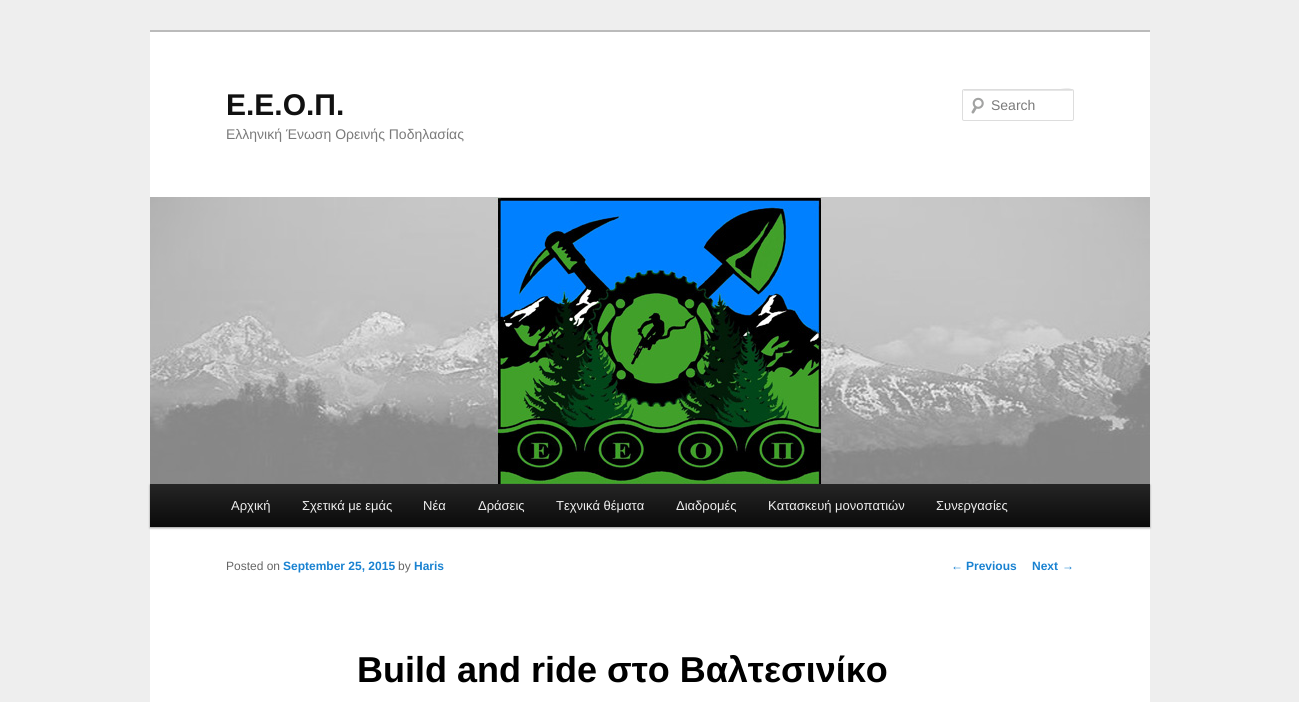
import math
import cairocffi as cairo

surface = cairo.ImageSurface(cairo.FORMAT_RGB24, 1299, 702)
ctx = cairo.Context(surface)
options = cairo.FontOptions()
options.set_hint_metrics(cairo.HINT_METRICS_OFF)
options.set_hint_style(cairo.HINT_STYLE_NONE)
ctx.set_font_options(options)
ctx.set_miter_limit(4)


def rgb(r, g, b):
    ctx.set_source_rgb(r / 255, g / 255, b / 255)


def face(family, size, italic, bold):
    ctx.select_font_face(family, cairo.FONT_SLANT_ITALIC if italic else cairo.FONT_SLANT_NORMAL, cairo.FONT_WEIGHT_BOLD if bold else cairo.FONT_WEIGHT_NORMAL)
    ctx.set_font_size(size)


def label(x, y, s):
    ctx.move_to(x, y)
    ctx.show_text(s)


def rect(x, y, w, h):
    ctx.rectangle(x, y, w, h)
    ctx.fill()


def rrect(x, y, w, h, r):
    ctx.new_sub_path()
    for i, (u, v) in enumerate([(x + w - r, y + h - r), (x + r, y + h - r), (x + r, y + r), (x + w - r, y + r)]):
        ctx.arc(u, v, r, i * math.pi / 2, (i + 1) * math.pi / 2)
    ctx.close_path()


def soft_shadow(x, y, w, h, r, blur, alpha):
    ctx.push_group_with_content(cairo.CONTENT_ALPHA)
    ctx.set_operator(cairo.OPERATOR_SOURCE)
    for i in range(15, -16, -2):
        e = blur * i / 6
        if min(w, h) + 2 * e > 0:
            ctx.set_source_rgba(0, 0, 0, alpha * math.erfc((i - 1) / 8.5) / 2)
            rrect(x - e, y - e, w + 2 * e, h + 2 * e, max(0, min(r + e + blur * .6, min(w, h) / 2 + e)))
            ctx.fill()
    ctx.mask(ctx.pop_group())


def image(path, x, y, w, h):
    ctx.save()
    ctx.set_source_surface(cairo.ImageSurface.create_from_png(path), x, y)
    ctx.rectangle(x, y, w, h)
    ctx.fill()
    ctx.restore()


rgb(238, 238, 238)
ctx.paint()
rgb(255, 255, 255)
rect(150, 32, 1000, 670)
rgb(187, 187, 187)
rect(150, 30, 1000, 2)
face('Liberation Sans', 30, 0, 1)
rgb(17, 17, 17)
label(226, 115, 'Ε.Ε.Ο.Π.')
face('Liberation Sans', 14, 0, 0)
rgb(122, 122, 122)
label(226, 139, 'Ελληνική Ένωση Ορεινής Ποδηλασίας')
image('image0.png', 971, 97, 13, 17)
rgb(230, 230, 230)
ctx.new_path()
ctx.move_to(964, 91)
ctx.line_to(1073, 91)
ctx.line_to(1073, 92)
ctx.curve_to(1073, 85, 1058, 90, 1054, 90)
ctx.line_to(964, 90)
ctx.line_to(963, 92)
ctx.curve_to(963, 91, 963, 91, 964, 91)
ctx.close_path()
ctx.fill()
rrect(962.5, 89.5, 111, 31, 1.5)
rgb(221, 221, 221)
ctx.set_line_width(1)
ctx.stroke()
rgb(122, 122, 122)
label(991, 110, 'Search')
rgb(0, 0, 0)
soft_shadow(150, 485, 1000, 43, 0, 1, 0.4)
image('image1.png', 150, 197, 1000, 287)
gradient = cairo.LinearGradient(650, 484, 650, 527)
gradient.add_color_stop_rgba(0, 0.145, 0.145, 0.145, 1)
gradient.add_color_stop_rgba(1, 0.039, 0.039, 0.039, 1)
ctx.set_source(gradient)
rect(150, 484, 1000, 43)
face('Liberation Sans', 13, 0, 0)
rgb(238, 238, 238)
label(231, 510, 'Αρχική')
label(302, 510, 'Σχετικά με εμάς')
label(423, 510, 'Νέα')
label(478, 510, 'Δράσεις')
label(556, 510, 'Τεχνικά θέματα')
label(676, 510, 'Διαδρομές')
label(768, 510, 'Κατασκευή μονοπατιών')
label(936, 510, 'Συνεργασίες')
face('Liberation Sans', 12, 0, 0)
rgb(102, 102, 102)
label(226, 570, 'Posted on')
face('Liberation Sans', 12, 0, 1)
rgb(25, 130, 209)
label(283, 570, 'September 25, 2015')
face('Liberation Sans', 12, 0, 0)
rgb(102, 102, 102)
label(398, 570, 'by')
face('Liberation Sans', 12, 0, 1)
rgb(25, 130, 209)
label(414, 570, 'Haris')
face('Liberation Sans', 36, 0, 1)
rgb(0, 0, 0)
label(357, 682, 'Βuild and ride στο Βαλτεσινίκο')
face('Liberation Sans', 12, 0, 0)
rgb(25, 130, 209)
label(951, 570, '←')
face('Liberation Sans', 12, 0, 1)
label(966, 570, 'Previous')
label(1032, 570, 'Next')
face('Liberation Sans', 12, 0, 0)
label(1062, 570, '→')
surface.write_to_png('render.png')
